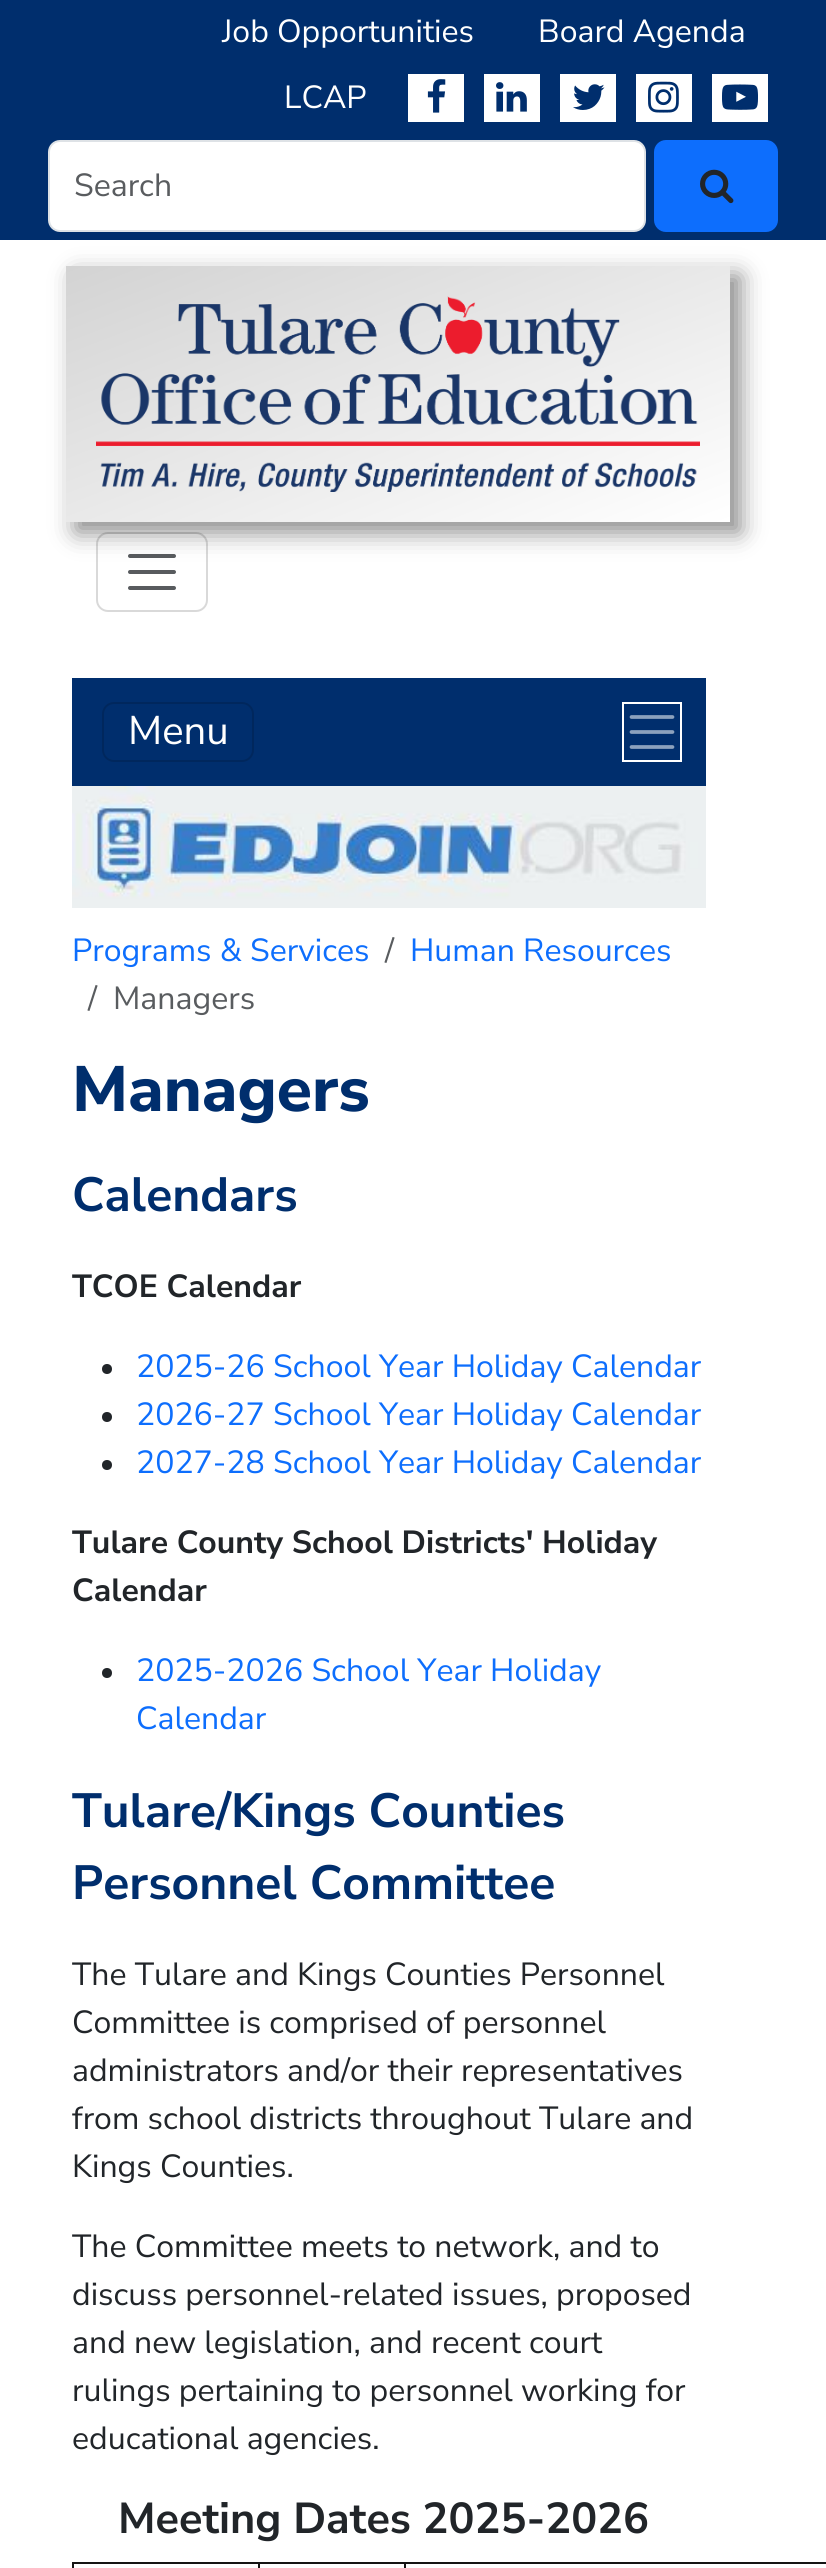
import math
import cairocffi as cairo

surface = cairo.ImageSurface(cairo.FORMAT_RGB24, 826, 2568)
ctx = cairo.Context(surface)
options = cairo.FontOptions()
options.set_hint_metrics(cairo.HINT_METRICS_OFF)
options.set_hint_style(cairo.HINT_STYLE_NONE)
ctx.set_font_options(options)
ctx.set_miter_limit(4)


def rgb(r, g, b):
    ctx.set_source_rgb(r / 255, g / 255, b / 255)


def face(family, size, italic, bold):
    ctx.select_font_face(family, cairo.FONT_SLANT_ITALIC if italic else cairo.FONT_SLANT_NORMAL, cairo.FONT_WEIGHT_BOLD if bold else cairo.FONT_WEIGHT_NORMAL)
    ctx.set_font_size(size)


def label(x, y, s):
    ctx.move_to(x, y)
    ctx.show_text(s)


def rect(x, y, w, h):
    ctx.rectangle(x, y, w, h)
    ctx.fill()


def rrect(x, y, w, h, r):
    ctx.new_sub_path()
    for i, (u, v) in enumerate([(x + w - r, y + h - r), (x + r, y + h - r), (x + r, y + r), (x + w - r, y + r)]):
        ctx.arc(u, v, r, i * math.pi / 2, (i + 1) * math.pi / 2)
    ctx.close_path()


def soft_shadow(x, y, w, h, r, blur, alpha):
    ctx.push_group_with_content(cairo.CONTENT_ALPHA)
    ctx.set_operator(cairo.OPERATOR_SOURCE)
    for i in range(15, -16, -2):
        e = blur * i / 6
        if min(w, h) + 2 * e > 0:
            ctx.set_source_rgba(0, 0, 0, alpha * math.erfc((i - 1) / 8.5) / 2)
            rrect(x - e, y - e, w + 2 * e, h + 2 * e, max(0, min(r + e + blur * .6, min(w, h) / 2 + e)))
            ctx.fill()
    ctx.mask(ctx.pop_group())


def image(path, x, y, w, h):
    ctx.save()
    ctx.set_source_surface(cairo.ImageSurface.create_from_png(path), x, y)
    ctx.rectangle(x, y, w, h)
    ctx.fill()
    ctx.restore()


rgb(255, 255, 255)
ctx.paint()
rgb(0, 46, 109)
rect(0, 0, 826, 240)
face('Nunito Sans', 32, 0, 0)
rgb(255, 255, 255)
label(222, 42, 'Job Opportunities')
label(538, 42, 'Board Agenda')
label(284, 108, 'LCAP')
rect(408, 74, 56, 48)
image('image0.png', 427, 79, 19, 34)
rect(484, 74, 56, 48)
image('image1.png', 496, 82, 31, 30)
rect(560, 74, 56, 48)
image('image2.png', 573, 84, 32, 26)
rect(636, 74, 56, 48)
image('image3.png', 648, 81, 31, 32)
rect(712, 74, 56, 48)
image('image4.png', 722, 84, 36, 26)
rrect(49, 141, 596, 90, 11)
ctx.fill_preserve()
rgb(222, 226, 230)
ctx.stroke()
rgb(89, 92, 95)
label(74, 196, 'Search')
rgb(13, 110, 253)
rrect(654, 140, 124, 92, 12)
ctx.fill()
image('image5.png', 700, 169, 34, 35)
rgb(136, 136, 136)
soft_shadow(76, 276, 664, 256, 0, 12, 1)
gradient = cairo.LinearGradient(312, 171, 484, 617)
gradient.add_color_stop_rgba(0, 0.827, 0.827, 0.827, 1)
gradient.add_color_stop_rgba(1, 1, 1, 1, 1)
ctx.set_source(gradient)
rect(66, 266, 664, 256)
image('image6.png', 96, 296, 604, 196)
rrect(97, 533, 110, 78, 11)
ctx.set_source_rgba(0, 0, 0, 0.15)
ctx.stroke()
ctx.new_path()
ctx.move_to(130, 556)
ctx.line_to(174, 556)
ctx.move_to(130, 572)
ctx.line_to(174, 572)
ctx.move_to(130, 588)
ctx.line_to(174, 588)
ctx.set_source_rgba(0.129, 0.145, 0.161, 0.75)
ctx.set_line_width(4)
ctx.set_line_cap(cairo.LINE_CAP_ROUND)
ctx.stroke()
rgb(0, 46, 109)
rect(72, 678, 634, 108)
rrect(103, 703, 150, 58, 11)
rgb(0, 39, 93)
ctx.set_line_width(2)
ctx.set_line_cap(cairo.LINE_CAP_BUTT)
ctx.stroke()
face('Nunito Sans', 40, 0, 0)
rgb(255, 255, 255)
label(128, 744, 'Menu')
ctx.new_path()
ctx.move_to(631.5, 717)
ctx.line_to(672.5, 717)
ctx.move_to(631.5, 732)
ctx.line_to(672.5, 732)
ctx.move_to(631.5, 747)
ctx.line_to(672.5, 747)
rgb(140, 161, 189)
ctx.set_line_width(3.7)
ctx.set_line_cap(cairo.LINE_CAP_ROUND)
ctx.stroke()
ctx.rectangle(623, 703, 58, 58)
rgb(255, 255, 255)
ctx.set_line_width(2)
ctx.set_line_cap(cairo.LINE_CAP_BUTT)
ctx.stroke()
image('image7.png', 72, 786, 634, 122)
face('Nunito Sans', 32, 0, 0)
rgb(13, 110, 253)
label(72, 961, 'Programs & Services')
rgb(89, 92, 95)
label(385, 961, '/')
rgb(13, 110, 253)
label(410, 961, 'Human Resources')
rgb(89, 92, 95)
label(88, 1009, '/')
label(113, 1009, 'Managers')
face('Nunito Sans ExtraBold', 64, 0, 0)
rgb(0, 46, 109)
label(72, 1111, 'Managers')
face('Nunito Sans', 48, 0, 1)
label(72, 1211, 'Calendars')
face('Nunito Sans', 32, 0, 1)
rgb(33, 37, 41)
label(72, 1297, 'TCOE Calendar')
ctx.new_path()
ctx.arc(107, 1369, 5, 0, 2 * math.pi)
ctx.fill()
face('Nunito Sans', 32, 0, 0)
rgb(13, 110, 253)
label(136, 1377, '2025-26 School Year Holiday Calendar')
rgb(33, 37, 41)
ctx.new_path()
ctx.arc(107, 1417, 5, 0, 2 * math.pi)
ctx.fill()
rgb(13, 110, 253)
label(136, 1425, '2026-27 School Year Holiday Calendar')
rgb(33, 37, 41)
ctx.new_path()
ctx.arc(107, 1465, 5, 0, 2 * math.pi)
ctx.fill()
rgb(13, 110, 253)
label(136, 1473, '2027-28 School Year Holiday Calendar')
face('Nunito Sans', 32, 0, 1)
rgb(33, 37, 41)
label(72, 1553, 'Tulare County School Districts\' Holiday')
label(72, 1601, 'Calendar')
ctx.new_path()
ctx.arc(107, 1673, 5, 0, 2 * math.pi)
ctx.fill()
face('Nunito Sans', 32, 0, 0)
rgb(13, 110, 253)
label(136, 1681, '2025-2026 School Year Holiday')
label(136, 1729, 'Calendar')
face('Nunito Sans', 48, 0, 1)
rgb(0, 46, 109)
label(72, 1827, 'Tulare/Kings Counties')
label(72, 1899, 'Personnel Committee')
face('Nunito Sans', 32, 0, 0)
rgb(33, 37, 41)
label(72, 1985, 'The Tulare and Kings Counties Personnel')
label(72, 2033, 'Committee is comprised of personnel')
label(72, 2081, 'administrators and/or their representatives')
label(72, 2129, 'from school districts throughout Tulare and')
label(72, 2177, 'Kings Counties.')
label(72, 2257, 'The Committee meets to network, and to')
label(72, 2305, 'discuss personnel-related issues, proposed')
label(72, 2353, 'and new legislation, and recent court')
label(72, 2401, 'rulings pertaining to personnel working for')
label(72, 2449, 'educational agencies.')
face('Nunito Sans', 43.25, 0, 1)
label(118, 2533, 'Meeting Dates 2025-2026')
rgb(21, 20, 20)
rect(404, 2562, 422, 2)
rect(404, 2562, 2, 6)
rect(258, 2562, 148, 2)
rect(258, 2562, 2, 6)
rect(72, 2562, 188, 2)
rect(72, 2562, 2, 6)
surface.write_to_png('render.png')
